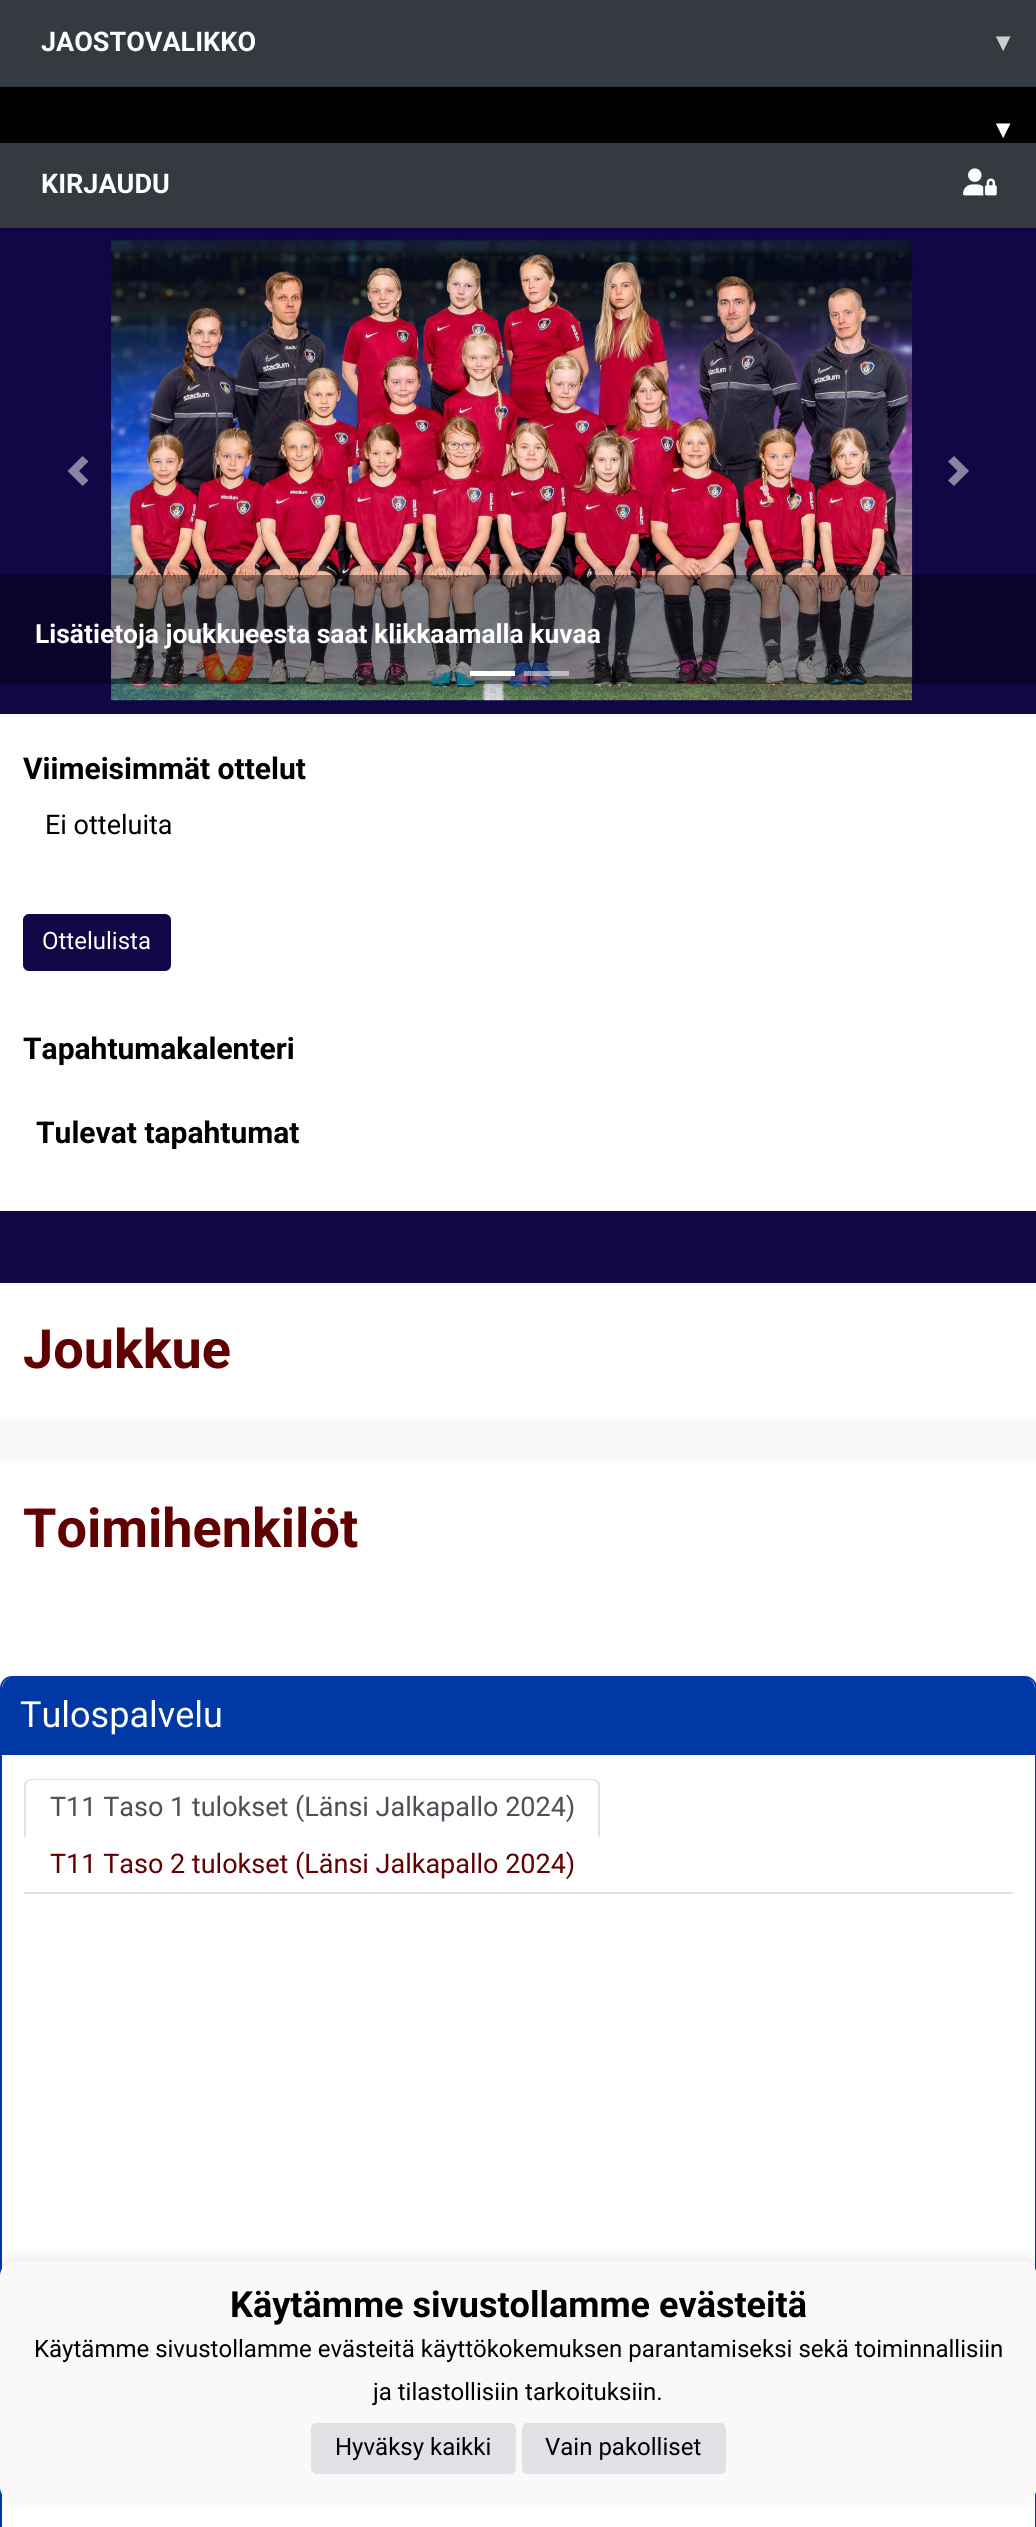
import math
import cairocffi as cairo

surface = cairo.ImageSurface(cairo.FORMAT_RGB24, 1036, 2527)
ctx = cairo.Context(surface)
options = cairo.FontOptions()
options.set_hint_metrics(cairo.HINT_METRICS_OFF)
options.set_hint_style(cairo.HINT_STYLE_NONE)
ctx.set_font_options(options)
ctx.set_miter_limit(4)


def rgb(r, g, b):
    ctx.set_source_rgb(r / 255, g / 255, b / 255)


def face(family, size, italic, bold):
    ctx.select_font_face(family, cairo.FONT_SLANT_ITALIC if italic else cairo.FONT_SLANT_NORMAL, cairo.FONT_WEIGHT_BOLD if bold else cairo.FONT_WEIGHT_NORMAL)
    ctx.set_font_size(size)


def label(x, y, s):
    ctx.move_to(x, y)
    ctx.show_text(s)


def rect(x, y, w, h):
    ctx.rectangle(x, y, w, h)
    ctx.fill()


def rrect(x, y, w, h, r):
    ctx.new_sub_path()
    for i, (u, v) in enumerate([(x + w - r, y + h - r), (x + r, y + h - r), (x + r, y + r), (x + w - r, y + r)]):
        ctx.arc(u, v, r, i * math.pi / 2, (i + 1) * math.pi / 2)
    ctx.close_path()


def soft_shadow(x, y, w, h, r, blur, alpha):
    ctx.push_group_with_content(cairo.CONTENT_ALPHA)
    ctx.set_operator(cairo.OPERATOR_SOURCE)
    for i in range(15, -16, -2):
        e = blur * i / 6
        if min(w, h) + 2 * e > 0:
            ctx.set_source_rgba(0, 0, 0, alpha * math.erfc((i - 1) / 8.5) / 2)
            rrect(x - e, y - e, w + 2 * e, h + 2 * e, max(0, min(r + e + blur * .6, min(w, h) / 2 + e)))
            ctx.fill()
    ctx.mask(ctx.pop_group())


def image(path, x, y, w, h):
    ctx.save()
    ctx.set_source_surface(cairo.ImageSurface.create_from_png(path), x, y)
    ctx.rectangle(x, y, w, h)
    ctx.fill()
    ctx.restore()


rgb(255, 255, 255)
ctx.paint()
rgb(52, 58, 64)
rect(0, 0, 1036, 86)
rgb(49, 55, 61)
rect(0, 86, 1036, 1)
face('Roboto', 27, 0, 1)
rgb(255, 255, 255)
label(41, 51, 'JAOSTOVALIKKO')
face('DejaVu Sans', 27, 0, 1)
rgb(204, 206, 207)
label(996, 51, '▾')
rgb(0, 0, 0)
rect(0, 87, 1036, 56)
rgb(255, 255, 255)
label(996, 138, '▾')
rgb(52, 58, 64)
rect(0, 143, 1036, 85)
image('image1.png', 0, 228, 1036, 486)
ctx.set_source_rgba(0, 0, 0, 0.05)
rect(0, 227, 1036, 2)
face('Roboto', 27, 0, 1)
rgb(255, 255, 255)
label(41, 193, 'KIRJAUDU')
image('image0.png', 963, 168, 34, 28)
rgb(136, 131, 163)
ctx.new_path()
ctx.move_to(82.5, 456)
ctx.line_to(67.5, 471)
ctx.line_to(82.5, 486)
ctx.line_to(88.5, 480.5)
ctx.line_to(79, 471)
ctx.line_to(88.5, 461.5)
ctx.close_path()
ctx.fill()
ctx.new_path()
ctx.move_to(954, 456)
ctx.line_to(948, 461.5)
ctx.line_to(957.5, 471)
ctx.line_to(948, 480.5)
ctx.line_to(954, 486)
ctx.line_to(969, 471)
ctx.close_path()
ctx.fill()
ctx.set_source_rgba(0, 0, 0, 0.4)
rect(0, 575, 1036, 109)
face('Roboto', 26.4, 0, 1)
rgb(255, 255, 255)
label(35, 643, 'Lisätietoja joukkueesta saat klikkaamalla kuvaa')
rect(470, 671, 45, 5)
ctx.set_source_rgba(1, 1, 1, 0.5)
rect(524, 671, 45, 5)
face('Roboto', 30, 0, 1)
rgb(0, 0, 0)
label(23, 779, 'Viimeisimmät ottelut')
face('Roboto', 27, 0, 0)
label(45, 834, 'Ei otteluita')
rgb(17, 7, 70)
rrect(23, 914, 148, 57, 6)
ctx.fill()
face('Roboto', 24, 0, 0)
rgb(255, 255, 255)
label(42, 949, 'Ottelulista')
face('Roboto', 30, 0, 1)
rgb(0, 0, 0)
label(23, 1059, 'Tapahtumakalenteri')
label(36, 1143, 'Tulevat tapahtumat')
rgb(17, 7, 70)
rect(0, 1211, 1036, 72)
face('Roboto', 54, 0, 1)
rgb(97, 0, 0)
label(23, 1368, 'Joukkue')
rgb(248, 249, 250)
rect(0, 1419, 1036, 42)
rgb(97, 0, 0)
label(23, 1547, 'Toimihenkilöt')
ctx.new_path()
ctx.move_to(12, 1677)
ctx.line_to(1025, 1677)
ctx.curve_to(1031, 1677, 1036, 1682, 1036, 1688)
ctx.line_to(1036, 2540)
ctx.line_to(1, 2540)
ctx.line_to(1, 1688)
ctx.curve_to(1, 1682, 6, 1677, 12, 1677)
ctx.close_path()
rgb(0, 57, 166)
ctx.stroke()
ctx.new_path()
ctx.move_to(14, 1677)
ctx.line_to(1023, 1677)
ctx.curve_to(1029.5, 1677, 1035, 1682.5, 1035, 1689)
ctx.line_to(1035, 1755)
ctx.line_to(2, 1755)
ctx.line_to(2, 1689)
ctx.curve_to(2, 1682.5, 7.5, 1677, 14, 1677)
ctx.close_path()
ctx.fill()
face('Roboto', 36, 0, 0)
rgb(255, 255, 255)
label(20, 1727, 'Tulospalvelu')
rgb(222, 226, 230)
rect(24, 1892, 989, 2)
ctx.new_path()
ctx.move_to(30, 1779)
ctx.curve_to(28, 1779, 27, 1780, 26, 1781)
ctx.line_to(27, 1782)
ctx.curve_to(28, 1781, 29, 1780, 30, 1780)
ctx.line_to(594, 1780)
ctx.line_to(597, 1782)
ctx.line_to(598, 1781)
ctx.curve_to(597, 1780, 596, 1779, 594, 1779)
ctx.close_path()
ctx.fill()
ctx.new_path()
ctx.move_to(600, 1838)
ctx.line_to(600, 1785)
ctx.curve_to(600, 1784, 599, 1782, 598, 1781)
ctx.line_to(597, 1782)
ctx.line_to(598, 1785)
ctx.line_to(598, 1836)
ctx.close_path()
ctx.fill()
rgb(255, 255, 255)
ctx.new_path()
ctx.move_to(600, 1838)
ctx.line_to(24, 1838)
ctx.line_to(26, 1836)
ctx.line_to(598, 1836)
ctx.close_path()
ctx.fill()
rgb(222, 226, 230)
ctx.new_path()
ctx.move_to(24, 1838)
ctx.line_to(26, 1836)
ctx.line_to(26, 1785)
ctx.line_to(27, 1782)
ctx.line_to(26, 1781)
ctx.curve_to(25, 1782, 24, 1784, 24, 1785)
ctx.close_path()
ctx.fill()
face('Roboto', 27, 0, 0)
rgb(73, 80, 87)
label(50, 1816, 'T11 Taso 1 tulokset (Länsi Jalkapallo 2024)')
rgb(97, 0, 0)
label(50, 1873, 'T11 Taso 2 tulokset (Länsi Jalkapallo 2024)')
rgb(0, 0, 0)
soft_shadow(0, 2258, 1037, 241, 15, 7.5, 0.1)
rgb(250, 248, 248)
rrect(0, 2261, 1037, 241, 15)
ctx.fill()
face('Roboto', 36, 0, 1)
rgb(0, 0, 0)
label(230, 2317, 'Käytämme sivustollamme evästeitä')
face('Roboto', 24, 0, 0)
label(34, 2357, 'Käytämme sivustollamme evästeitä käyttökokemuksen parantamiseksi sekä toiminnallisiin')
label(373, 2400, 'ja tilastollisiin tarkoituksiin.')
rgb(223, 225, 229)
rrect(311, 2423, 205, 51, 6)
ctx.fill()
rgb(0, 0, 0)
label(335, 2455, 'Hyväksy kaikki')
rgb(223, 225, 229)
rrect(522, 2423, 204, 51, 6)
ctx.fill()
rgb(0, 0, 0)
label(545, 2455, 'Vain pakolliset')
surface.write_to_png('render.png')
